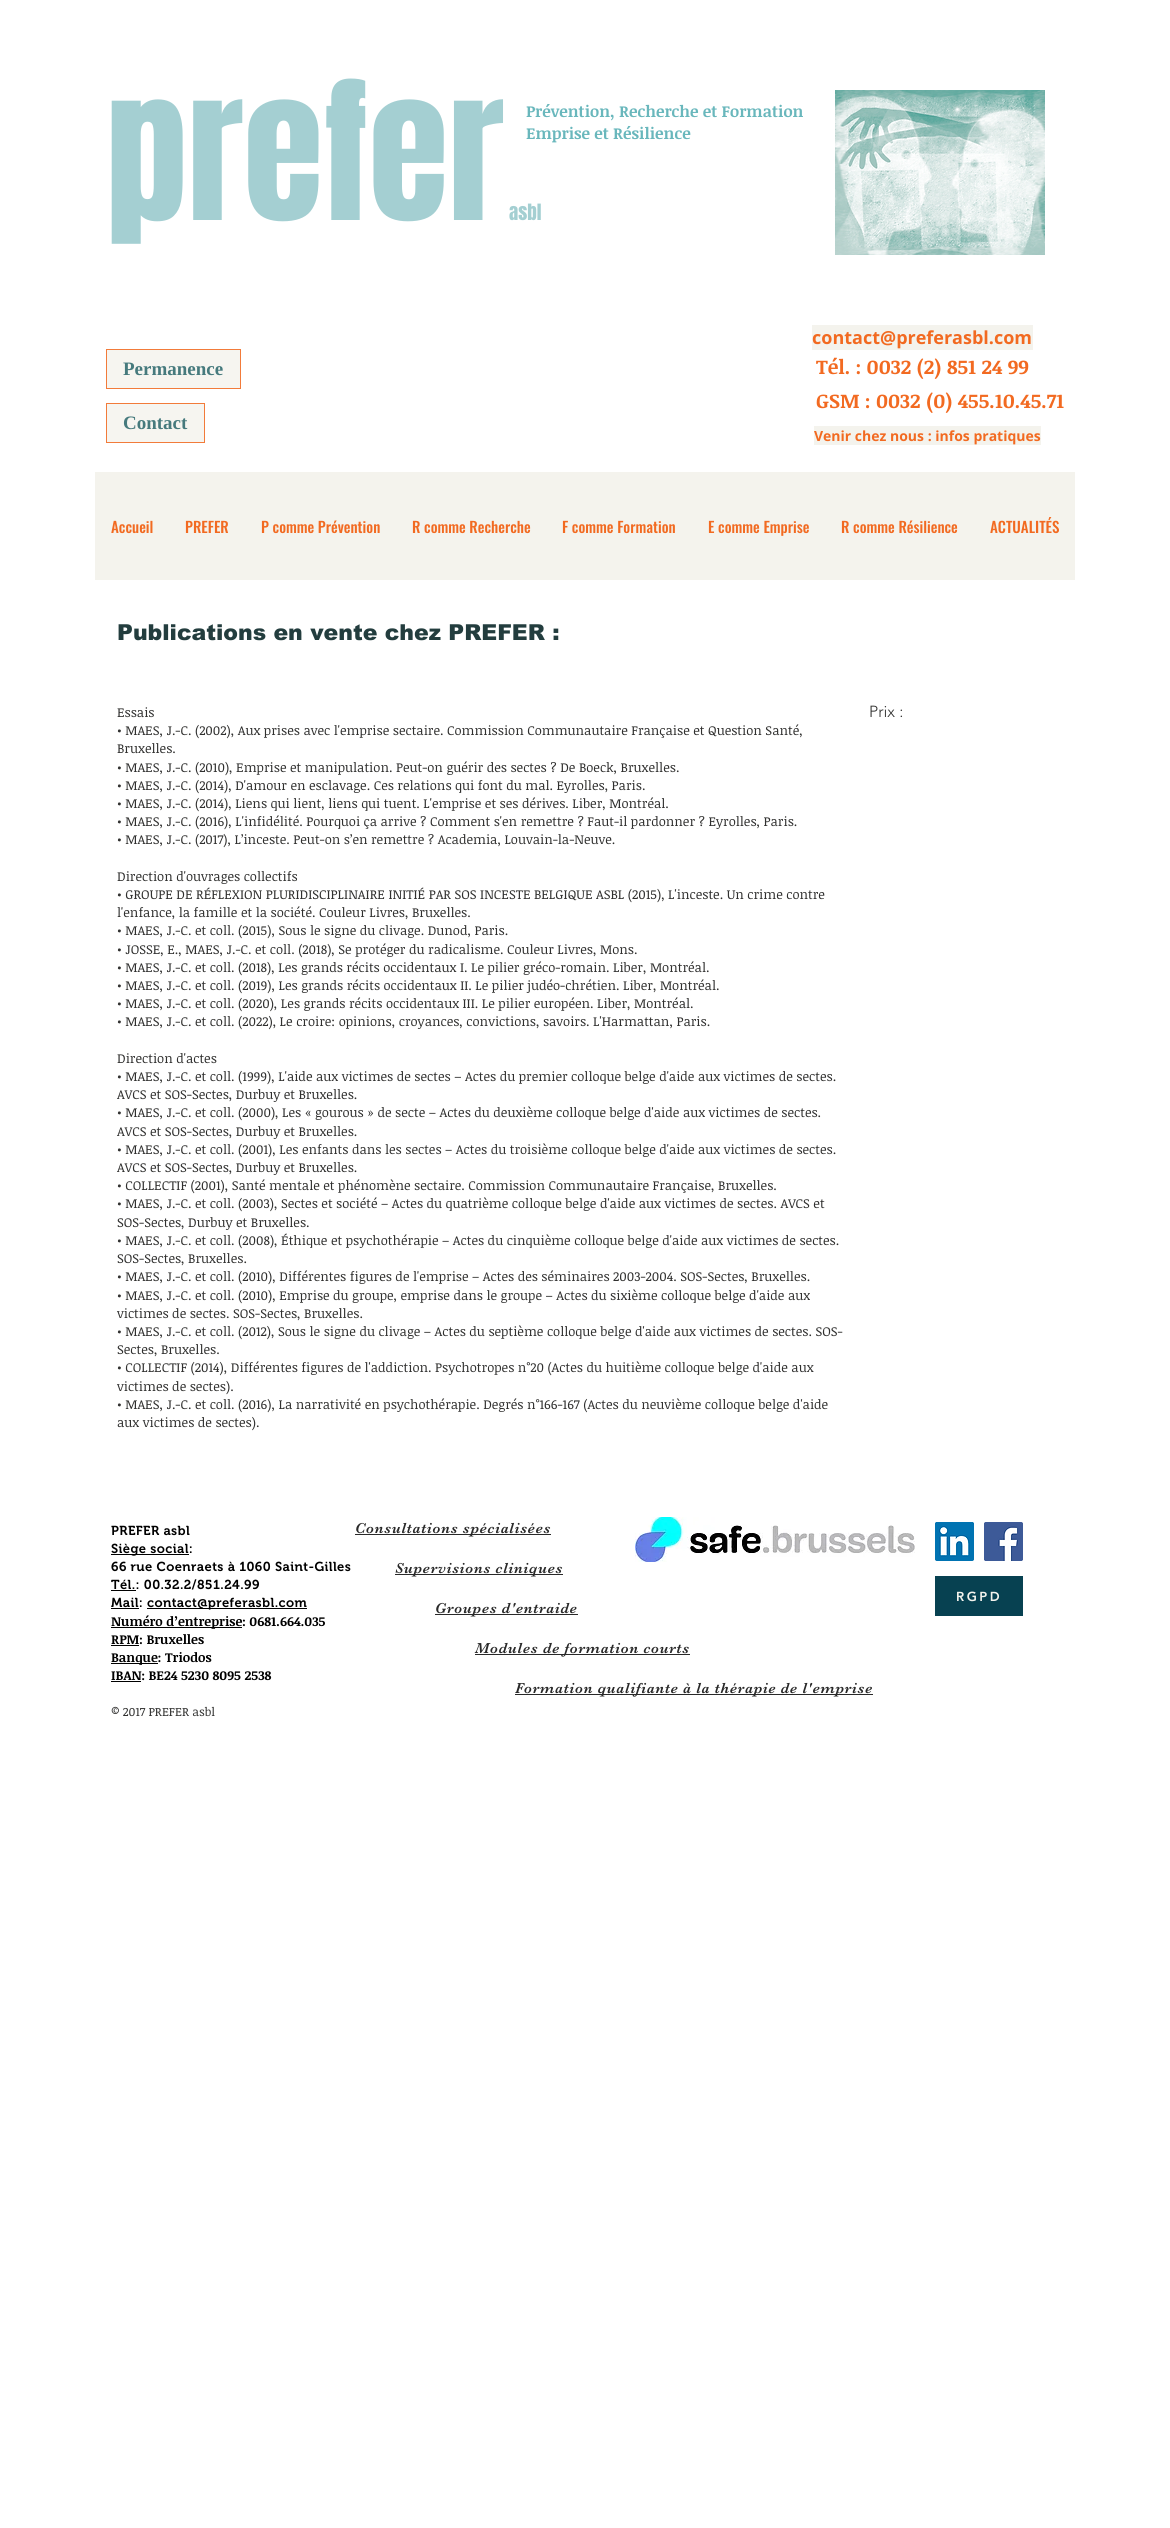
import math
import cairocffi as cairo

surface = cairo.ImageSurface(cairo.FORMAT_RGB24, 1170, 2528)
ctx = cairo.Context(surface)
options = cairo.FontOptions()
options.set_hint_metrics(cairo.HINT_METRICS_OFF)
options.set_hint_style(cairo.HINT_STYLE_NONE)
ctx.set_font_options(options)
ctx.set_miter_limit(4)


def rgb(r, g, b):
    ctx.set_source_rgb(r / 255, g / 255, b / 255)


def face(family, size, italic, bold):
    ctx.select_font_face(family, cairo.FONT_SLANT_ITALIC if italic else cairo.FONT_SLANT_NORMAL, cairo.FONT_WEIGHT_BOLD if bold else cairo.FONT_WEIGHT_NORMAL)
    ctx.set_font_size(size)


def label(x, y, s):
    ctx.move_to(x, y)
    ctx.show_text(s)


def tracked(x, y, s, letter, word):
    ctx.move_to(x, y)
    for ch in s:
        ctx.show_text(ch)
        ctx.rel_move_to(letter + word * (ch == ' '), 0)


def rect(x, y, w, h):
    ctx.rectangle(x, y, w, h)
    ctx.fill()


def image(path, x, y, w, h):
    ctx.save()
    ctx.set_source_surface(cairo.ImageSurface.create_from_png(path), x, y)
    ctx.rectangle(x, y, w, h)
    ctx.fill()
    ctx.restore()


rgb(255, 255, 255)
ctx.paint()
face('Anton', 163, 0, 0)
rgb(164, 207, 210)
label(106, 220, 'prefer')
face('Anton', 19, 0, 0)
label(509, 220, 'asbl')
face('Noticia Text', 16, 0, 1)
rgb(105, 183, 188)
label(526, 117, 'Prévention, Recherche et Formation')
label(526, 139, 'Emprise et Résilience')
image('image0.png', 835, 90, 210, 165)
rgb(246, 245, 240)
ctx.rectangle(106.5, 349.5, 134, 39)
ctx.fill_preserve()
rgb(242, 123, 58)
ctx.set_line_width(1)
ctx.stroke()
face('Liberation Serif', 19, 0, 1)
rgb(70, 122, 125)
label(123, 375, 'Permanence')
rgb(244, 243, 237)
rect(812, 325, 221, 25)
face('Open Sans', 18, 0, 1)
rgb(242, 106, 33)
label(812, 344, 'contact@preferasbl.com')
face('Noticia Text', 20, 0, 1)
label(816, 374, 'Tél. : 0032 (2) 851 24 99')
label(816, 408, 'GSM : 0032 (0) 455.10.45.71')
rgb(244, 243, 237)
rect(814, 426, 227, 19)
face('Open Sans', 14, 0, 1)
rgb(242, 106, 33)
label(814, 441, 'Venir chez nous : infos pratiques')
rgb(246, 245, 240)
ctx.rectangle(106.5, 403.5, 98, 39)
ctx.fill_preserve()
rgb(242, 123, 58)
ctx.stroke()
face('Liberation Serif', 19, 0, 1)
rgb(70, 122, 125)
label(123, 429, 'Contact')
rgb(244, 243, 237)
rect(95, 472, 980, 108)
face('Oswald Medium', 15, 0, 0)
rgb(242, 106, 33)
label(111, 533, 'Accueil')
label(185, 533, 'PREFER')
label(261, 533, 'P comme Prévention')
label(412, 533, 'R comme Recherche')
label(562, 533, 'F comme Formation')
label(708, 533, 'E comme Emprise')
label(841, 533, 'R comme Résilience')
label(990, 533, 'ACTUALITÉS')
face('arial Black', 22, 0, 0)
rgb(35, 61, 62)
label(117, 640, 'Publications en vente chez PREFER :')
face('Noticia Text', 13, 0, 0)
rgb(48, 48, 47)
label(117, 717, 'Essais')
label(117, 735, '• MAES, J.-C. (2002), Aux prises avec l\'emprise sectaire. Commission Communautaire Française et Question Santé,')
label(117, 753, 'Bruxelles.')
label(117, 772, '• MAES, J.-C. (2010), Emprise et manipulation. Peut-on guérir des sectes ? De Boeck, Bruxelles.')
label(117, 790, '• MAES, J.-C. (2014), D\'amour en esclavage. Ces relations qui font du mal. Eyrolles, Paris.')
label(117, 808, '• MAES, J.-C. (2014), Liens qui lient, liens qui tuent. L\'emprise et ses dérives. Liber, Montréal.')
label(117, 826, '• MAES, J.-C. (2016), L\'infidélité. Pourquoi ça arrive ? Comment s\'en remettre ? Faut-il pardonner ? Eyrolles, Paris.')
label(117, 844, '• MAES, J.-C. (2017), L’inceste. Peut-on s’en remettre ? Academia, Louvain-la-Neuve.')
label(117, 881, 'Direction d\'ouvrages collectifs')
label(117, 899, '• GROUPE DE RÉFLEXION PLURIDISCIPLINAIRE INITIÉ PAR SOS INCESTE BELGIQUE ASBL (2015), L\'inceste. Un crime contre')
label(117, 917, 'l\'enfance, la famille et la société. Couleur Livres, Bruxelles.')
label(117, 935, '• MAES, J.-C. et coll. (2015), Sous le signe du clivage. Dunod, Paris.')
label(117, 954, '• JOSSE, E., MAES, J.-C. et coll. (2018), Se protéger du radicalisme. Couleur Livres, Mons.')
label(117, 972, '• MAES, J.-C. et coll. (2018), Les grands récits occidentaux I. Le pilier gréco-romain. Liber, Montréal.')
label(117, 990, '• MAES, J.-C. et coll. (2019), Les grands récits occidentaux II. Le pilier judéo-chrétien. Liber, Montréal.')
label(117, 1008, '• MAES, J.-C. et coll. (2020), Les grands récits occidentaux III. Le pilier européen. Liber, Montréal.')
label(117, 1026, '• MAES, J.-C. et coll. (2022), Le croire: opinions, croyances, convictions, savoirs. L\'Harmattan, Paris.')
label(117, 1063, 'Direction d\'actes')
label(117, 1081, '• MAES, J.-C. et coll. (1999), L\'aide aux victimes de sectes – Actes du premier colloque belge d\'aide aux victimes de sectes.')
label(117, 1099, 'AVCS et SOS-Sectes, Durbuy et Bruxelles.')
label(117, 1117, '• MAES, J.-C. et coll. (2000), Les « gourous » de secte – Actes du deuxième colloque belge d\'aide aux victimes de sectes.')
label(117, 1136, 'AVCS et SOS-Sectes, Durbuy et Bruxelles.')
label(117, 1154, '• MAES, J.-C. et coll. (2001), Les enfants dans les sectes – Actes du troisième colloque belge d\'aide aux victimes de sectes.')
label(117, 1172, 'AVCS et SOS-Sectes, Durbuy et Bruxelles.')
label(117, 1190, '• COLLECTIF (2001), Santé mentale et phénomène sectaire. Commission Communautaire Française, Bruxelles.')
label(117, 1208, '• MAES, J.-C. et coll. (2003), Sectes et société – Actes du quatrième colloque belge d\'aide aux victimes de sectes. AVCS et')
label(117, 1227, 'SOS-Sectes, Durbuy et Bruxelles.')
label(117, 1245, '• MAES, J.-C. et coll. (2008), Éthique et psychothérapie – Actes du cinquième colloque belge d\'aide aux victimes de sectes.')
label(117, 1263, 'SOS-Sectes, Bruxelles.')
label(117, 1281, '• MAES, J.-C. et coll. (2010), Différentes figures de l\'emprise – Actes des séminaires 2003-2004. SOS-Sectes, Bruxelles.')
label(117, 1300, '• MAES, J.-C. et coll. (2010), Emprise du groupe, emprise dans le groupe – Actes du sixième colloque belge d\'aide aux')
label(117, 1318, 'victimes de sectes. SOS-Sectes, Bruxelles.')
label(117, 1336, '• MAES, J.-C. et coll. (2012), Sous le signe du clivage – Actes du septième colloque belge d\'aide aux victimes de sectes. SOS-')
label(117, 1354, 'Sectes, Bruxelles.')
label(117, 1372, '• COLLECTIF (2014), Différentes figures de l\'addiction. Psychotropes n°20 (Actes du huitième colloque belge d\'aide aux')
label(117, 1391, 'victimes de sectes).')
label(117, 1409, '• MAES, J.-C. et coll. (2016), La narrativité en psychothérapie. Degrés n°166-167 (Actes du neuvième colloque belge d\'aide')
label(117, 1427, 'aux victimes de sectes).')
face('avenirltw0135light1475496 Light', 16, 0, 0)
label(869, 717, 'Prix :')
image('image1.png', 635, 1517, 280, 45)
face('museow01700 SemiBold', 13, 0, 0)
rgb(0, 0, 0)
tracked(111, 1535, 'PREFER asbl', 0.4, 0)
rect(111, 1554, 78, 1)
tracked(111, 1553, 'Siège social:', 0.4, 0)
tracked(111, 1571, '66 rue Coenraets à 1060 Saint-Gilles', 0.4, 0)
tracked(111, 1589, 'Tél.: 00.32.2/851.24.99', 0.4, 0)
rect(111, 1590, 25, 1)
tracked(111, 1607, 'Mail:', 0.4, 0)
rect(111, 1608, 28, 1)
rect(147, 1608, 160, 1)
tracked(147, 1607, 'contact@preferasbl.com', 0.4, 0)
rect(111, 1627, 131, 1)
face('Noticia Text', 13, 0, 1)
label(111, 1626, 'Numéro d’entreprise: 0681.664.035')
label(111, 1644, 'RPM: Bruxelles')
rect(111, 1645, 28, 1)
rect(111, 1663, 47, 1)
label(111, 1662, 'Banque: Triodos')
label(111, 1680, 'IBAN: BE24 5230 8095 2538')
rect(111, 1681, 30, 1)
face('Noticia Text', 12, 0, 0)
rgb(48, 48, 47)
label(111, 1716, '© 2017 PREFER asbl')
rgb(41, 41, 41)
rect(355, 1534, 196, 1)
face('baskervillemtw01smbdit', 15, 0, 0)
tracked(355, 1533, 'Consultations spécialisées', 0.75, 0)
rect(395, 1574, 168, 1)
tracked(395, 1573, 'Supervisions cliniques', 0.75, 0)
rect(435, 1614, 143, 1)
tracked(435, 1613, 'Groupes d\'entraide', 0.75, 0)
rect(475, 1654, 215, 1)
tracked(475, 1653, 'Modules de formation courts', 0.75, 0)
rect(515, 1694, 358, 1)
tracked(515, 1693, 'Formation qualifiante à la thérapie de l\'emprise', 0.75, 0)
image('image2.png', 935, 1522, 39, 39)
image('image3.png', 984, 1522, 39, 39)
rgb(7, 65, 81)
rect(935, 1576, 88, 40)
face('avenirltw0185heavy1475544 Black', 13, 0, 0)
rgb(244, 243, 237)
tracked(956, 1601, 'RGPD', 2.5, 0)
surface.write_to_png('render.png')
